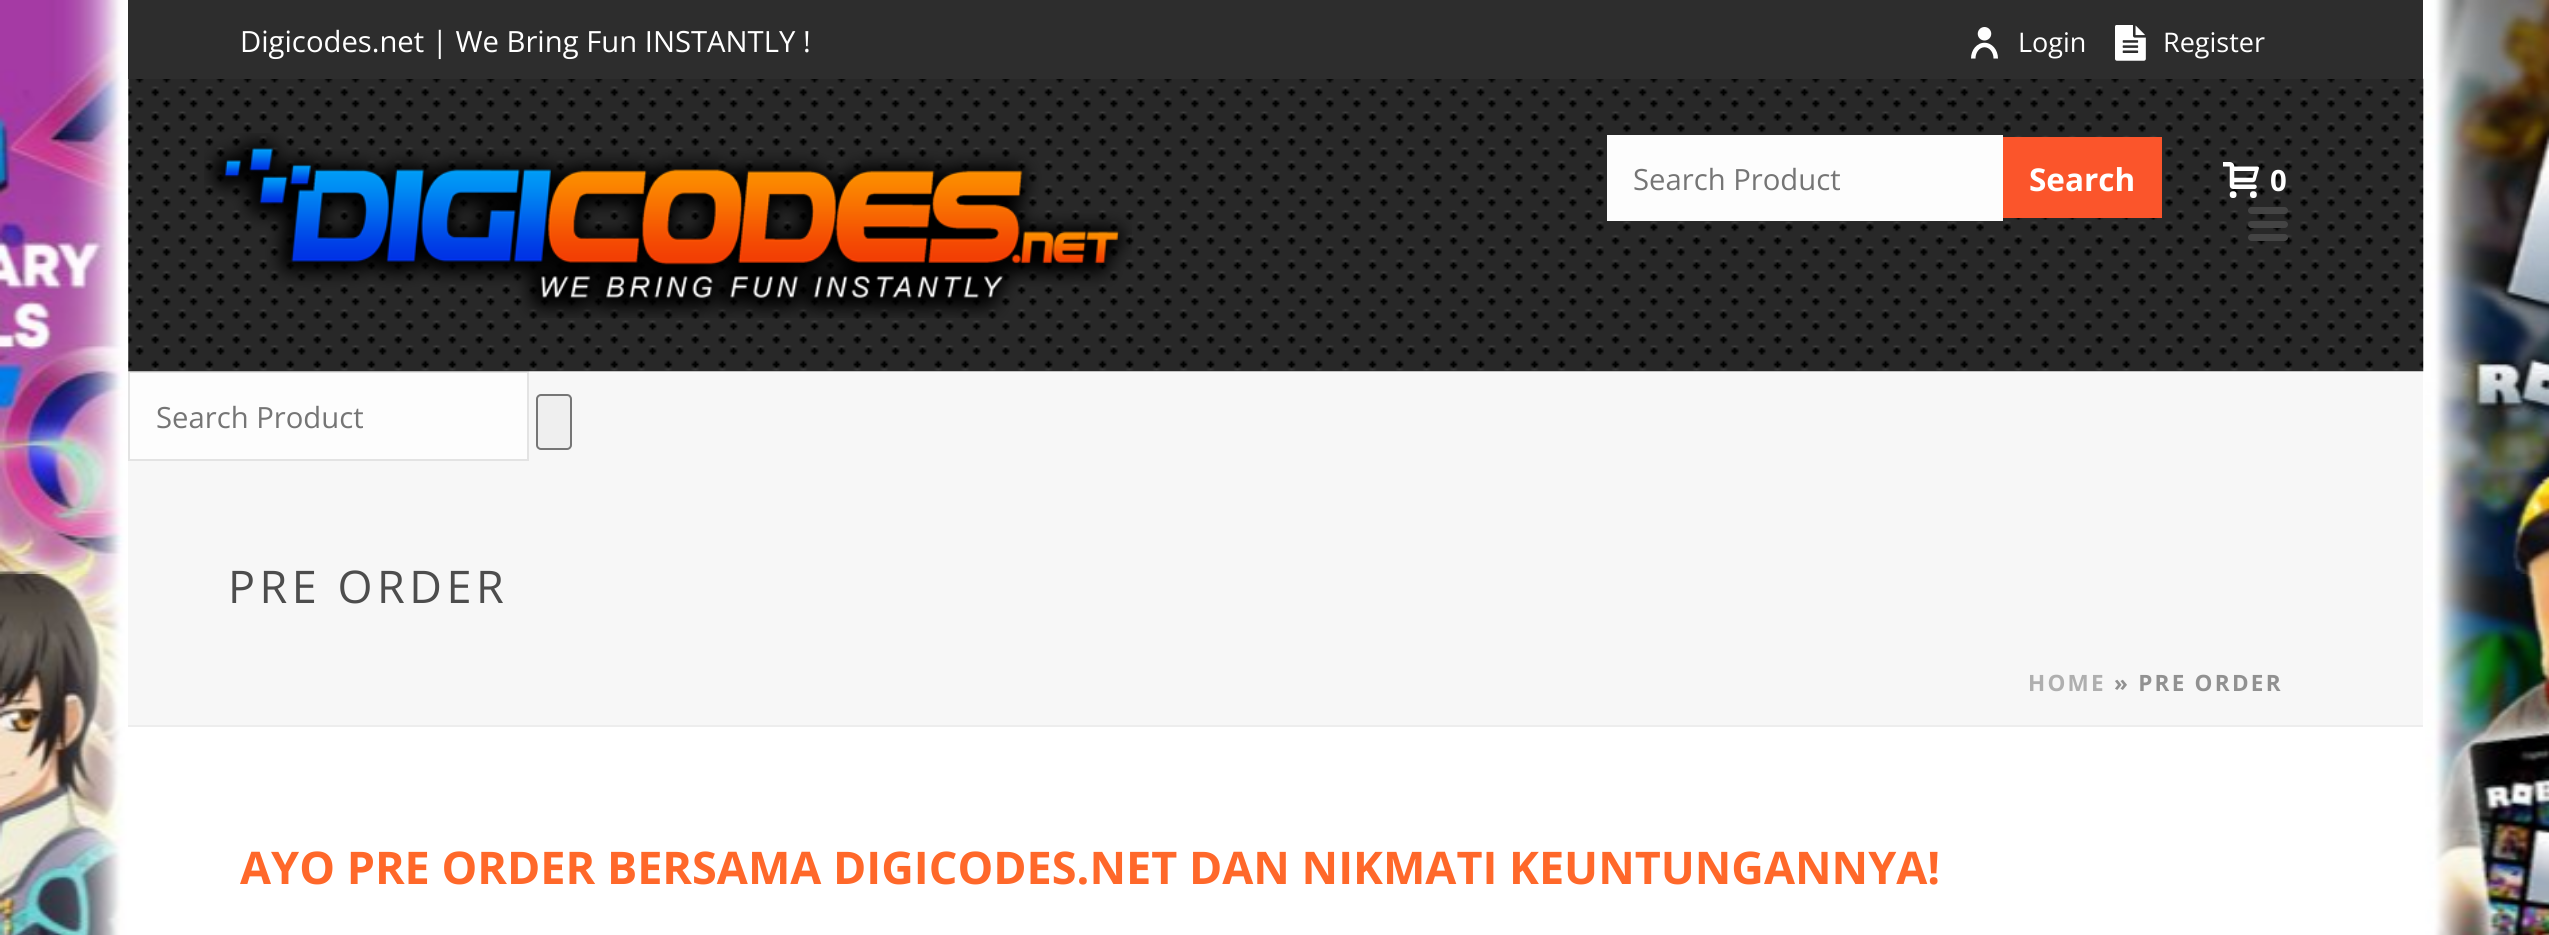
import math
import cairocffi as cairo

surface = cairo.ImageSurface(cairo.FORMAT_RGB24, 2549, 935)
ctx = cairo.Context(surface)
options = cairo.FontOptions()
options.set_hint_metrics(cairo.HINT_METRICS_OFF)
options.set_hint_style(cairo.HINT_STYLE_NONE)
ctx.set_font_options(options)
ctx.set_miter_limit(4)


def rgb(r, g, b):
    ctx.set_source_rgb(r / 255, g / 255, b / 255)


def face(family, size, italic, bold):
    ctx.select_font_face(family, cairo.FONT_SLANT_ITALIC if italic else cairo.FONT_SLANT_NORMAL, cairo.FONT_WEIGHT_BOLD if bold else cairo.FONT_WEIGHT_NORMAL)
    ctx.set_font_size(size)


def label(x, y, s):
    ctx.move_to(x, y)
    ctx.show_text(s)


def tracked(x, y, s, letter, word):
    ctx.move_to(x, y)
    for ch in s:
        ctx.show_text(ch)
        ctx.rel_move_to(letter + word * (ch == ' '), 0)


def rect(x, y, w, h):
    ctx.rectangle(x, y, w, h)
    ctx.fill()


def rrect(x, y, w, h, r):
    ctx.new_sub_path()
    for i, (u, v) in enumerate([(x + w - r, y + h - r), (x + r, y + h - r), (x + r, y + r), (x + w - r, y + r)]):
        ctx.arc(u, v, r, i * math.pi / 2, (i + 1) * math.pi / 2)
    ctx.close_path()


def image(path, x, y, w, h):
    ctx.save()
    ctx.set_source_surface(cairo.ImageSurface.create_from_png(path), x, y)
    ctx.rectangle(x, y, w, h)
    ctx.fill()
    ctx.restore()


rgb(255, 255, 255)
ctx.paint()
image('image0.png', 0, 0, 2549, 935)
rgb(247, 247, 247)
rect(128, 79, 2295, 646)
rgb(237, 237, 237)
rect(128, 725, 2295, 2)
rgb(253, 253, 253)
ctx.rectangle(129, 372, 399, 88)
ctx.fill_preserve()
rgb(227, 227, 227)
ctx.stroke()
image('image3.png', 128, 78, 2296, 294)
rgb(45, 45, 45)
rect(128, 0, 2295, 79)
face('Open Sans', 29.25, 0, 0)
rgb(255, 255, 255)
label(240, 52, 'Digicodes.net | We Bring Fun INSTANTLY !')
image('image1.png', 1971, 27, 27, 32)
face('Open Sans', 27, 0, 0)
label(2018, 52, 'Login')
image('image2.png', 2115, 25, 31, 36)
label(2163, 52, 'Register')
image('image4.png', 204, 133, 928, 185)
rgb(253, 253, 253)
rect(1607, 135, 396, 86)
face('Open Sans', 29.25, 0, 0)
rgb(117, 117, 117)
label(1633, 190, 'Search Product')
rgb(251, 85, 43)
rect(2003, 137, 159, 81)
face('Open Sans', 31.5, 0, 1)
rgb(255, 255, 255)
label(2029, 191, 'Search')
image('image5.png', 2223, 162, 36, 36)
face('Open Sans', 29.25, 0, 1)
label(2270, 191, '0')
rgb(68, 68, 68)
rrect(2248, 207, 40, 7, 3.5)
ctx.fill()
rrect(2248, 221, 40, 7, 3.5)
ctx.fill()
rrect(2248, 234, 40, 7, 3.5)
ctx.fill()
face('Open Sans', 29.25, 0, 0)
rgb(117, 117, 117)
label(156, 428, 'Search Product')
rgb(239, 239, 239)
rrect(537, 395, 34, 54, 4)
ctx.fill_preserve()
rgb(118, 118, 118)
ctx.stroke()
face('Open Sans', 45, 0, 0)
rgb(77, 77, 77)
tracked(228, 603, 'PRE ORDER', 4.5, 0)
face('Open Sans', 22.5, 0, 1)
rgb(175, 175, 175)
tracked(2028, 691, 'HOME', 2.25, 0)
rgb(145, 145, 145)
tracked(2114, 691, '» PRE ORDER', 2.25, 0)
face('Open Sans', 45, 0, 1)
rgb(255, 104, 42)
label(240, 884, 'AYO PRE ORDER BERSAMA DIGICODES.NET DAN NIKMATI KEUNTUNGANNYA!')
surface.write_to_png('render.png')
